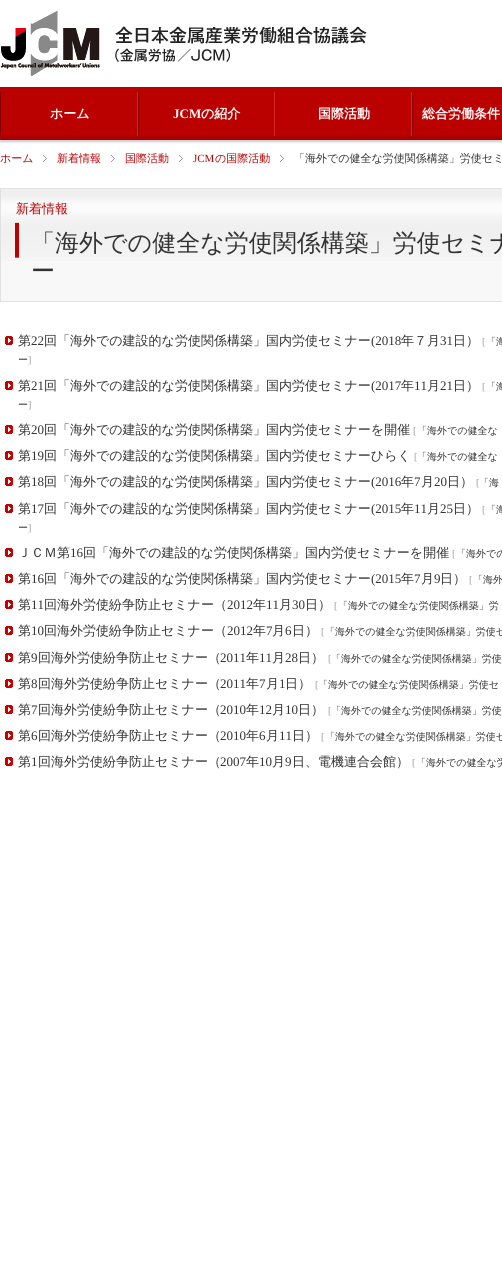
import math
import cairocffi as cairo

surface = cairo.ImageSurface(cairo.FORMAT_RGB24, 502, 1281)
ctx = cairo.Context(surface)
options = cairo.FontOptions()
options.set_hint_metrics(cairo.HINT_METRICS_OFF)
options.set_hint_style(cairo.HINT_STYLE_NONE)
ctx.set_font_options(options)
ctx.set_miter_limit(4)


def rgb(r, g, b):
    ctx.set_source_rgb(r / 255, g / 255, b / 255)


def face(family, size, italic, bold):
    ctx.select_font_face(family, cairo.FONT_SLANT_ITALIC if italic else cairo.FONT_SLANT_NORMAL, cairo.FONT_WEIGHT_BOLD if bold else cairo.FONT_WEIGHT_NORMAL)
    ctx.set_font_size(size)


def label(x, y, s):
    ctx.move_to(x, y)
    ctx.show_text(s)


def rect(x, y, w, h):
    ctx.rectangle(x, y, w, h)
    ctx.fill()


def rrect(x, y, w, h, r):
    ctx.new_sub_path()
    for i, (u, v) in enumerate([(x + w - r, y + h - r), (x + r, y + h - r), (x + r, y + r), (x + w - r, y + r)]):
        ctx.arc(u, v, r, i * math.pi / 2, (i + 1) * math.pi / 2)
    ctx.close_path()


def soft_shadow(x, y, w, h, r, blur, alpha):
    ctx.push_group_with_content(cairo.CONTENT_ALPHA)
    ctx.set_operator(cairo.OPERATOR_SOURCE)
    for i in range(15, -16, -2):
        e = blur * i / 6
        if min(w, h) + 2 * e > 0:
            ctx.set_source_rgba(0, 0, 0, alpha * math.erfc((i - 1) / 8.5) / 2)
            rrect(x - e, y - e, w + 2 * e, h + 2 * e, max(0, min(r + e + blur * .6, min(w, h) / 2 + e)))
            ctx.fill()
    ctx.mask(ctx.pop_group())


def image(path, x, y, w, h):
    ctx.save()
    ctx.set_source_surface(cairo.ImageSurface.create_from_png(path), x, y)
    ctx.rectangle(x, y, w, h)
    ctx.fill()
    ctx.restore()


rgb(255, 255, 255)
ctx.paint()
image('image0.png', 0, 10, 367, 66)
rgb(204, 204, 204)
soft_shadow(0, 89, 502, 53, 0, 1, 1)
gradient = cairo.LinearGradient(251, 87, 251, 140)
gradient.add_color_stop_rgba(0, 0.733, 0, 0, 1)
gradient.add_color_stop_rgba(0.88, 0.733, 0, 0, 1)
gradient.add_color_stop_rgba(1, 0.631, 0, 0, 1)
ctx.set_source(gradient)
rect(0, 87, 502, 53)
rgb(134, 0, 0)
rect(0, 92, 1, 44)
face('WenQuanYi Zen Hei', 13, 0, 1)
rgb(255, 255, 255)
label(50, 118, 'ホーム')
rgb(217, 37, 37)
rect(137, 92, 1, 44)
rgb(134, 0, 0)
rect(138, 92, 1, 44)
face('Liberation Serif', 13, 0, 1)
rgb(255, 255, 255)
label(173, 118, 'JCM')
face('WenQuanYi Zen Hei', 13, 0, 1)
label(201, 118, 'の紹介')
rgb(217, 37, 37)
rect(274, 92, 1, 44)
rgb(134, 0, 0)
rect(275, 92, 1, 44)
rgb(255, 255, 255)
label(318, 118, '国際活動')
rgb(217, 37, 37)
rect(411, 92, 1, 44)
rgb(134, 0, 0)
rect(412, 92, 1, 44)
rgb(255, 255, 255)
label(422, 118, '総合労働条件')
face('WenQuanYi Zen Hei Medium', 11, 0, 0)
rgb(187, 0, 0)
label(0, 162, 'ホーム')
image('image1.png', 43, 155, 4, 7)
label(57, 162, '新着情報')
image('image1.png', 111, 155, 4, 7)
label(125, 162, '国際活動')
image('image1.png', 179, 155, 4, 7)
face('Liberation Serif', 11, 0, 0)
label(193, 162, 'JCM')
face('WenQuanYi Zen Hei Medium', 11, 0, 0)
label(215, 162, 'の国際活動')
image('image1.png', 280, 155, 4, 7)
rgb(51, 51, 51)
label(294, 162, '「海外での健全な労使関係構築」労使セミ')
rgb(249, 248, 249)
rect(1, 261, 501, 40)
image('image2.png', 1, 189, 501, 72)
ctx.rectangle(0.5, 188.5, 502, 113)
rgb(225, 225, 225)
ctx.set_line_width(1)
ctx.stroke()
face('WenQuanYi Zen Hei Medium', 13, 0, 0)
rgb(187, 0, 0)
label(16, 213, '新着情報')
face('WenQuanYi Zen Hei Medium', 24, 0, 0)
rgb(51, 51, 51)
label(31, 251, '「海外での健全な労使関係構築」労使セミナ')
label(31, 279, 'ー')
image('image3.png', 5, 336, 8, 9)
face('WenQuanYi Zen Hei Medium', 13, 0, 0)
label(18, 345, '第')
face('Liberation Serif', 13, 0, 0)
label(31, 345, '22')
face('WenQuanYi Zen Hei Medium', 13, 0, 0)
label(44, 345, '回「海外での建設的な労使関係構築」国内労使セミナー')
face('Liberation Serif', 13, 0, 0)
label(371, 345, '(2018')
face('WenQuanYi Zen Hei Medium', 13, 0, 0)
label(401, 345, '年７月')
face('Liberation Serif', 13, 0, 0)
label(440, 345, '31')
face('WenQuanYi Zen Hei Medium', 13, 0, 0)
label(453, 345, '日）')
face('Liberation Serif', 10, 0, 0)
rgb(153, 153, 153)
label(482, 345, '[')
face('WenQuanYi Zen Hei Medium', 10, 0, 0)
rgb(51, 51, 51)
label(486, 345, '「海')
label(18, 363, 'ー')
face('Liberation Serif', 10, 0, 0)
rgb(153, 153, 153)
label(28, 363, ']')
image('image3.png', 5, 381, 8, 9)
face('WenQuanYi Zen Hei Medium', 13, 0, 0)
rgb(51, 51, 51)
label(18, 390, '第')
face('Liberation Serif', 13, 0, 0)
label(31, 390, '21')
face('WenQuanYi Zen Hei Medium', 13, 0, 0)
label(44, 390, '回「海外での建設的な労使関係構築」国内労使セミナー')
face('Liberation Serif', 13, 0, 0)
label(371, 390, '(2017')
face('WenQuanYi Zen Hei Medium', 13, 0, 0)
label(401, 390, '年')
face('Liberation Serif', 13, 0, 0)
label(414, 390, '11')
face('WenQuanYi Zen Hei Medium', 13, 0, 0)
label(427, 390, '月')
face('Liberation Serif', 13, 0, 0)
label(440, 390, '21')
face('WenQuanYi Zen Hei Medium', 13, 0, 0)
label(453, 390, '日）')
face('Liberation Serif', 10, 0, 0)
rgb(153, 153, 153)
label(482, 390, '[')
face('WenQuanYi Zen Hei Medium', 10, 0, 0)
rgb(51, 51, 51)
label(486, 390, '「海')
label(18, 408, 'ー')
face('Liberation Serif', 10, 0, 0)
rgb(153, 153, 153)
label(28, 408, ']')
image('image3.png', 5, 425, 8, 9)
face('WenQuanYi Zen Hei Medium', 13, 0, 0)
rgb(51, 51, 51)
label(18, 434, '第')
face('Liberation Serif', 13, 0, 0)
label(31, 434, '20')
face('WenQuanYi Zen Hei Medium', 13, 0, 0)
label(44, 434, '回「海外での建設的な労使関係構築」国内労使セミナーを開催')
face('Liberation Serif', 10, 0, 0)
rgb(153, 153, 153)
label(413, 434, '[')
face('WenQuanYi Zen Hei Medium', 10, 0, 0)
rgb(51, 51, 51)
label(417, 434, '「海外での健全な')
image('image3.png', 5, 451, 8, 9)
face('WenQuanYi Zen Hei Medium', 13, 0, 0)
label(18, 460, '第')
face('Liberation Serif', 13, 0, 0)
label(31, 460, '19')
face('WenQuanYi Zen Hei Medium', 13, 0, 0)
label(44, 460, '回「海外での建設的な労使関係構築」国内労使セミナーひらく')
face('Liberation Serif', 10, 0, 0)
rgb(153, 153, 153)
label(414, 460, '[')
face('WenQuanYi Zen Hei Medium', 10, 0, 0)
rgb(51, 51, 51)
label(417, 460, '「海外での健全な')
image('image3.png', 5, 477, 8, 9)
face('WenQuanYi Zen Hei Medium', 13, 0, 0)
label(18, 486, '第')
face('Liberation Serif', 13, 0, 0)
label(31, 486, '18')
face('WenQuanYi Zen Hei Medium', 13, 0, 0)
label(44, 486, '回「海外での建設的な労使関係構築」国内労使セミナー')
face('Liberation Serif', 13, 0, 0)
label(371, 486, '(2016')
face('WenQuanYi Zen Hei Medium', 13, 0, 0)
label(401, 486, '年')
face('Liberation Serif', 13, 0, 0)
label(414, 486, '7')
face('WenQuanYi Zen Hei Medium', 13, 0, 0)
label(421, 486, '月')
face('Liberation Serif', 13, 0, 0)
label(434, 486, '20')
face('WenQuanYi Zen Hei Medium', 13, 0, 0)
label(447, 486, '日）')
face('Liberation Serif', 10, 0, 0)
rgb(153, 153, 153)
label(476, 486, '[')
face('WenQuanYi Zen Hei Medium', 10, 0, 0)
rgb(51, 51, 51)
label(479, 486, '「海')
image('image3.png', 5, 504, 8, 9)
face('WenQuanYi Zen Hei Medium', 13, 0, 0)
label(18, 513, '第')
face('Liberation Serif', 13, 0, 0)
label(31, 513, '17')
face('WenQuanYi Zen Hei Medium', 13, 0, 0)
label(44, 513, '回「海外での建設的な労使関係構築」国内労使セミナー')
face('Liberation Serif', 13, 0, 0)
label(371, 513, '(2015')
face('WenQuanYi Zen Hei Medium', 13, 0, 0)
label(401, 513, '年')
face('Liberation Serif', 13, 0, 0)
label(414, 513, '11')
face('WenQuanYi Zen Hei Medium', 13, 0, 0)
label(427, 513, '月')
face('Liberation Serif', 13, 0, 0)
label(440, 513, '25')
face('WenQuanYi Zen Hei Medium', 13, 0, 0)
label(453, 513, '日）')
face('Liberation Serif', 10, 0, 0)
rgb(153, 153, 153)
label(482, 513, '[')
face('WenQuanYi Zen Hei Medium', 10, 0, 0)
rgb(51, 51, 51)
label(486, 513, '「海')
label(18, 531, 'ー')
face('Liberation Serif', 10, 0, 0)
rgb(153, 153, 153)
label(28, 531, ']')
image('image3.png', 5, 548, 8, 9)
face('WenQuanYi Zen Hei Medium', 13, 0, 0)
rgb(51, 51, 51)
label(18, 557, 'ＪＣＭ第')
face('Liberation Serif', 13, 0, 0)
label(70, 557, '16')
face('WenQuanYi Zen Hei Medium', 13, 0, 0)
label(83, 557, '回「海外での建設的な労使関係構築」国内労使セミナーを開催')
face('Liberation Serif', 10, 0, 0)
rgb(153, 153, 153)
label(452, 557, '[')
face('WenQuanYi Zen Hei Medium', 10, 0, 0)
rgb(51, 51, 51)
label(456, 557, '「海外での')
image('image3.png', 5, 574, 8, 9)
face('WenQuanYi Zen Hei Medium', 13, 0, 0)
label(18, 583, '第')
face('Liberation Serif', 13, 0, 0)
label(31, 583, '16')
face('WenQuanYi Zen Hei Medium', 13, 0, 0)
label(44, 583, '回「海外での建設的な労使関係構築」国内労使セミナー')
face('Liberation Serif', 13, 0, 0)
label(371, 583, '(2015')
face('WenQuanYi Zen Hei Medium', 13, 0, 0)
label(401, 583, '年')
face('Liberation Serif', 13, 0, 0)
label(414, 583, '7')
face('WenQuanYi Zen Hei Medium', 13, 0, 0)
label(421, 583, '月')
face('Liberation Serif', 13, 0, 0)
label(434, 583, '9')
face('WenQuanYi Zen Hei Medium', 13, 0, 0)
label(440, 583, '日）')
face('Liberation Serif', 10, 0, 0)
rgb(153, 153, 153)
label(469, 583, '[')
face('WenQuanYi Zen Hei Medium', 10, 0, 0)
rgb(51, 51, 51)
label(473, 583, '「海外')
image('image3.png', 5, 600, 8, 9)
face('WenQuanYi Zen Hei Medium', 13, 0, 0)
label(18, 609, '第')
face('Liberation Serif', 13, 0, 0)
label(31, 609, '11')
face('WenQuanYi Zen Hei Medium', 13, 0, 0)
label(44, 609, '回海外労使紛争防止セミナー（')
face('Liberation Serif', 13, 0, 0)
label(227, 609, '2012')
face('WenQuanYi Zen Hei Medium', 13, 0, 0)
label(253, 609, '年')
face('Liberation Serif', 13, 0, 0)
label(266, 609, '11')
face('WenQuanYi Zen Hei Medium', 13, 0, 0)
label(279, 609, '月')
face('Liberation Serif', 13, 0, 0)
label(292, 609, '30')
face('WenQuanYi Zen Hei Medium', 13, 0, 0)
label(305, 609, '日）')
face('Liberation Serif', 10, 0, 0)
rgb(153, 153, 153)
label(334, 609, '[')
face('WenQuanYi Zen Hei Medium', 10, 0, 0)
rgb(51, 51, 51)
label(338, 609, '「海外での健全な労使関係構築」労')
image('image3.png', 5, 626, 8, 9)
face('WenQuanYi Zen Hei Medium', 13, 0, 0)
label(18, 635, '第')
face('Liberation Serif', 13, 0, 0)
label(31, 635, '10')
face('WenQuanYi Zen Hei Medium', 13, 0, 0)
label(44, 635, '回海外労使紛争防止セミナー（')
face('Liberation Serif', 13, 0, 0)
label(227, 635, '2012')
face('WenQuanYi Zen Hei Medium', 13, 0, 0)
label(253, 635, '年')
face('Liberation Serif', 13, 0, 0)
label(266, 635, '7')
face('WenQuanYi Zen Hei Medium', 13, 0, 0)
label(272, 635, '月')
face('Liberation Serif', 13, 0, 0)
label(285, 635, '6')
face('WenQuanYi Zen Hei Medium', 13, 0, 0)
label(292, 635, '日）')
face('Liberation Serif', 10, 0, 0)
rgb(153, 153, 153)
label(321, 635, '[')
face('WenQuanYi Zen Hei Medium', 10, 0, 0)
rgb(51, 51, 51)
label(325, 635, '「海外での健全な労使関係構築」労使セ')
image('image3.png', 5, 653, 8, 9)
face('WenQuanYi Zen Hei Medium', 13, 0, 0)
label(18, 662, '第')
face('Liberation Serif', 13, 0, 0)
label(31, 662, '9')
face('WenQuanYi Zen Hei Medium', 13, 0, 0)
label(38, 662, '回海外労使紛争防止セミナー（')
face('Liberation Serif', 13, 0, 0)
label(220, 662, '2011')
face('WenQuanYi Zen Hei Medium', 13, 0, 0)
label(246, 662, '年')
face('Liberation Serif', 13, 0, 0)
label(259, 662, '11')
face('WenQuanYi Zen Hei Medium', 13, 0, 0)
label(272, 662, '月')
face('Liberation Serif', 13, 0, 0)
label(285, 662, '28')
face('WenQuanYi Zen Hei Medium', 13, 0, 0)
label(298, 662, '日）')
face('Liberation Serif', 10, 0, 0)
rgb(153, 153, 153)
label(328, 662, '[')
face('WenQuanYi Zen Hei Medium', 10, 0, 0)
rgb(51, 51, 51)
label(331, 662, '「海外での健全な労使関係構築」労使')
image('image3.png', 5, 679, 8, 9)
face('WenQuanYi Zen Hei Medium', 13, 0, 0)
label(18, 688, '第')
face('Liberation Serif', 13, 0, 0)
label(31, 688, '8')
face('WenQuanYi Zen Hei Medium', 13, 0, 0)
label(38, 688, '回海外労使紛争防止セミナー（')
face('Liberation Serif', 13, 0, 0)
label(220, 688, '2011')
face('WenQuanYi Zen Hei Medium', 13, 0, 0)
label(246, 688, '年')
face('Liberation Serif', 13, 0, 0)
label(259, 688, '7')
face('WenQuanYi Zen Hei Medium', 13, 0, 0)
label(266, 688, '月')
face('Liberation Serif', 13, 0, 0)
label(279, 688, '1')
face('WenQuanYi Zen Hei Medium', 13, 0, 0)
label(285, 688, '日）')
face('Liberation Serif', 10, 0, 0)
rgb(153, 153, 153)
label(315, 688, '[')
face('WenQuanYi Zen Hei Medium', 10, 0, 0)
rgb(51, 51, 51)
label(318, 688, '「海外での健全な労使関係構築」労使セ')
image('image3.png', 5, 705, 8, 9)
face('WenQuanYi Zen Hei Medium', 13, 0, 0)
label(18, 714, '第')
face('Liberation Serif', 13, 0, 0)
label(31, 714, '7')
face('WenQuanYi Zen Hei Medium', 13, 0, 0)
label(38, 714, '回海外労使紛争防止セミナー（')
face('Liberation Serif', 13, 0, 0)
label(220, 714, '2010')
face('WenQuanYi Zen Hei Medium', 13, 0, 0)
label(246, 714, '年')
face('Liberation Serif', 13, 0, 0)
label(259, 714, '12')
face('WenQuanYi Zen Hei Medium', 13, 0, 0)
label(272, 714, '月')
face('Liberation Serif', 13, 0, 0)
label(285, 714, '10')
face('WenQuanYi Zen Hei Medium', 13, 0, 0)
label(298, 714, '日）')
face('Liberation Serif', 10, 0, 0)
rgb(153, 153, 153)
label(328, 714, '[')
face('WenQuanYi Zen Hei Medium', 10, 0, 0)
rgb(51, 51, 51)
label(331, 714, '「海外での健全な労使関係構築」労使')
image('image3.png', 5, 731, 8, 9)
face('WenQuanYi Zen Hei Medium', 13, 0, 0)
label(18, 740, '第')
face('Liberation Serif', 13, 0, 0)
label(31, 740, '6')
face('WenQuanYi Zen Hei Medium', 13, 0, 0)
label(38, 740, '回海外労使紛争防止セミナー（')
face('Liberation Serif', 13, 0, 0)
label(220, 740, '2010')
face('WenQuanYi Zen Hei Medium', 13, 0, 0)
label(246, 740, '年')
face('Liberation Serif', 13, 0, 0)
label(259, 740, '6')
face('WenQuanYi Zen Hei Medium', 13, 0, 0)
label(266, 740, '月')
face('Liberation Serif', 13, 0, 0)
label(279, 740, '11')
face('WenQuanYi Zen Hei Medium', 13, 0, 0)
label(292, 740, '日）')
face('Liberation Serif', 10, 0, 0)
rgb(153, 153, 153)
label(321, 740, '[')
face('WenQuanYi Zen Hei Medium', 10, 0, 0)
rgb(51, 51, 51)
label(325, 740, '「海外での健全な労使関係構築」労使セ')
image('image3.png', 5, 757, 8, 9)
face('WenQuanYi Zen Hei Medium', 13, 0, 0)
label(18, 766, '第')
face('Liberation Serif', 13, 0, 0)
label(31, 766, '1')
face('WenQuanYi Zen Hei Medium', 13, 0, 0)
label(38, 766, '回海外労使紛争防止セミナー（')
face('Liberation Serif', 13, 0, 0)
label(220, 766, '2007')
face('WenQuanYi Zen Hei Medium', 13, 0, 0)
label(246, 766, '年')
face('Liberation Serif', 13, 0, 0)
label(259, 766, '10')
face('WenQuanYi Zen Hei Medium', 13, 0, 0)
label(272, 766, '月')
face('Liberation Serif', 13, 0, 0)
label(285, 766, '9')
face('WenQuanYi Zen Hei Medium', 13, 0, 0)
label(292, 766, '日、電機連合会館）')
face('Liberation Serif', 10, 0, 0)
rgb(153, 153, 153)
label(412, 766, '[')
face('WenQuanYi Zen Hei Medium', 10, 0, 0)
rgb(51, 51, 51)
label(416, 766, '「海外での健全な労')
surface.write_to_png('render.png')
